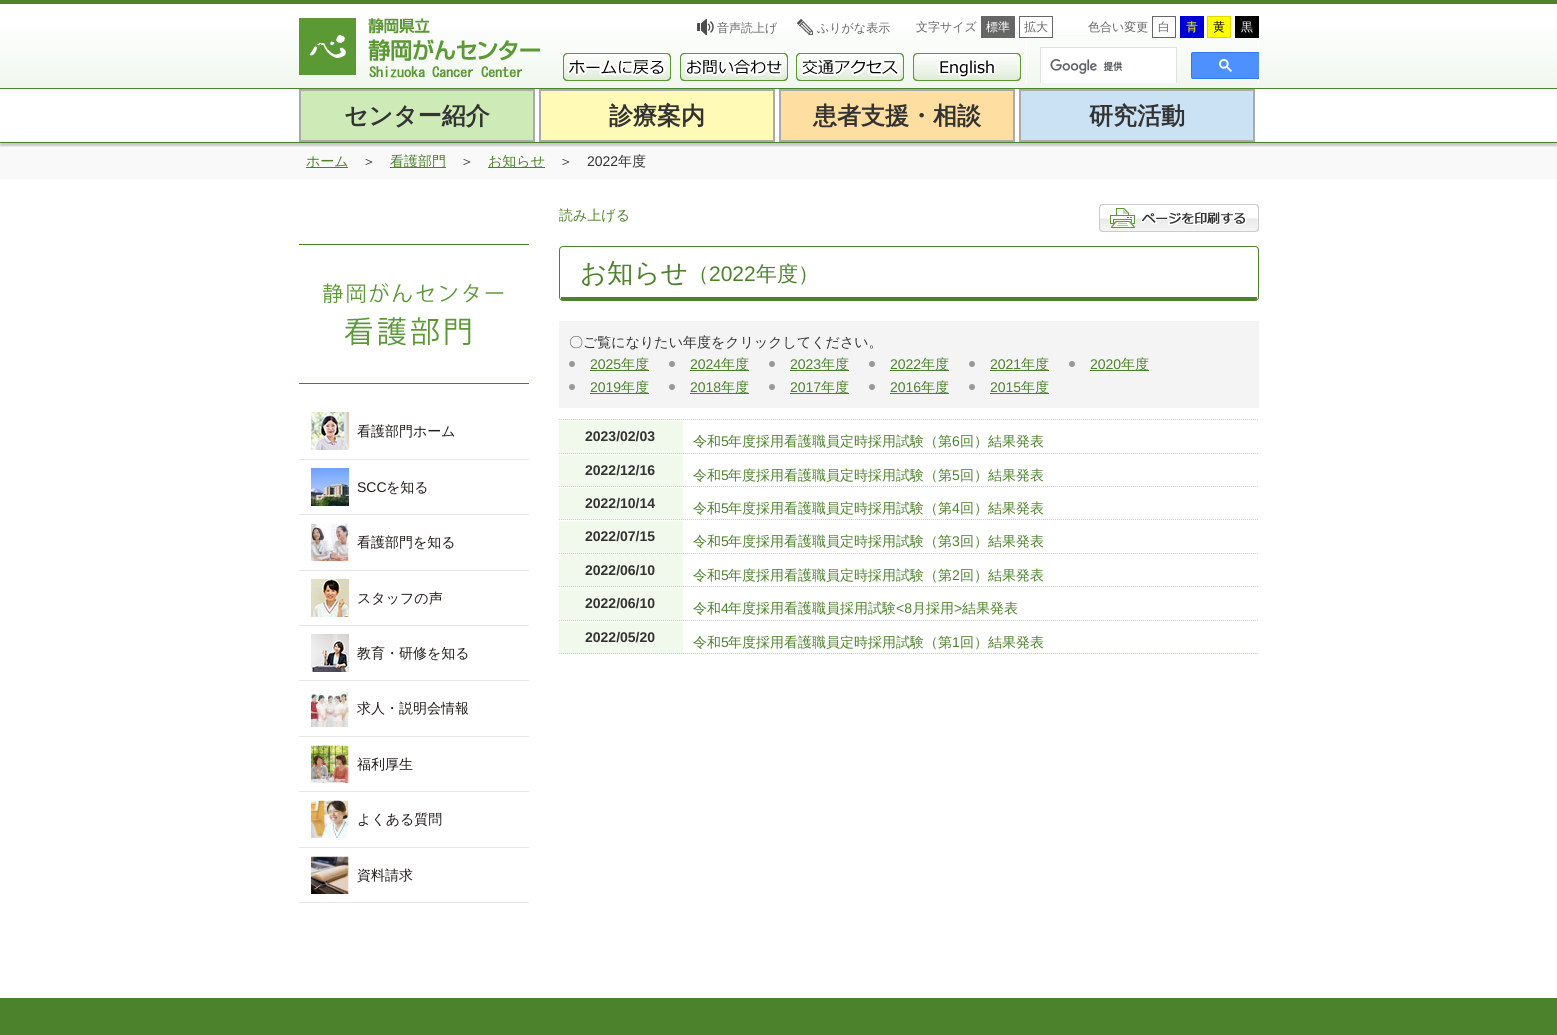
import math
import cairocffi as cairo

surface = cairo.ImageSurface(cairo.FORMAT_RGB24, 1557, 1035)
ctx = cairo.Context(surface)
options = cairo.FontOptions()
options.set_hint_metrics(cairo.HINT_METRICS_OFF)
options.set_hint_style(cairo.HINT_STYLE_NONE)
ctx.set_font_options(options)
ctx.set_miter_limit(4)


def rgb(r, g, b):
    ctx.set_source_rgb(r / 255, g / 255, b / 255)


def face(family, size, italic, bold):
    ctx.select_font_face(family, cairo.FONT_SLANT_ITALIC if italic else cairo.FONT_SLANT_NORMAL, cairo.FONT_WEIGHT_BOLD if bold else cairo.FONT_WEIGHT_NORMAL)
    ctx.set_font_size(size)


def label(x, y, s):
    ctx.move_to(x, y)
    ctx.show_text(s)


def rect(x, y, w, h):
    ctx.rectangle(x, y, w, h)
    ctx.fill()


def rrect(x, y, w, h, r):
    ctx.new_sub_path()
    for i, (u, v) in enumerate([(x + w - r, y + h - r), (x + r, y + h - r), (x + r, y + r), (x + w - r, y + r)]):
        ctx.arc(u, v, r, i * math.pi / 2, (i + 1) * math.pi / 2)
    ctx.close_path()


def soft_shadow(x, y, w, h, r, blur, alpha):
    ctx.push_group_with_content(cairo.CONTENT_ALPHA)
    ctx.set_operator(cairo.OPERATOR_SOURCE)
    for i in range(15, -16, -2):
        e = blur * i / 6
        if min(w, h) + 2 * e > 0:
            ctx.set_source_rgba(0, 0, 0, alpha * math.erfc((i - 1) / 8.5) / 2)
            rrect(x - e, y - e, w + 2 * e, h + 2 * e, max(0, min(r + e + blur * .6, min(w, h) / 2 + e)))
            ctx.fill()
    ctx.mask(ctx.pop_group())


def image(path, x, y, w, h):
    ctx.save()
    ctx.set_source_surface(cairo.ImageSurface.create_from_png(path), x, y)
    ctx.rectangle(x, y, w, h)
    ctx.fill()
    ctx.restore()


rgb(255, 255, 255)
ctx.paint()
rgb(77, 130, 44)
rect(0, 0, 1557, 4)
gradient = cairo.LinearGradient(779, 18, 779, 88)
gradient.add_color_stop_rgba(0, 1, 1, 1, 1)
gradient.add_color_stop_rgba(1, 0.945, 0.969, 0.933, 1)
ctx.set_source(gradient)
rect(0, 28, 1557, 60)
image('image0.png', 299, 18, 241, 60)
image('image1.png', 697, 19, 17, 16)
face('WenQuanYi Zen Hei Medium', 12, 0, 0)
rgb(102, 102, 102)
label(717, 32, '音声読上げ')
image('image2.png', 797, 19, 16, 16)
label(817, 32, 'ふりがな表示')
label(916, 31, '文字サイズ')
rect(981, 16, 34, 22)
rgb(255, 255, 255)
label(986, 31, '標準')
ctx.save()
ctx.rectangle(1026, 18, 233, 65)
ctx.clip()
ctx.rectangle(1026.5, 33.5, 232, 68)
ctx.set_line_width(1)
ctx.stroke()
ctx.restore()
rect(1020, 28, 32, 9)
ctx.rectangle(1019.5, 16.5, 33, 21)
rgb(102, 102, 102)
ctx.set_line_width(1)
ctx.stroke()
label(1024, 31, '拡大')
label(1088, 31, '色合い変更')
rgb(255, 255, 255)
rect(1153, 28, 22, 9)
ctx.rectangle(1152.5, 16.5, 23, 21)
rgb(102, 102, 102)
ctx.stroke()
label(1158, 31, '白')
rgb(0, 0, 217)
rect(1180, 16, 24, 22)
rgb(255, 255, 0)
label(1186, 31, '青')
ctx.rectangle(1207.5, 16.5, 23, 21)
ctx.fill_preserve()
rgb(219, 219, 0)
ctx.stroke()
rgb(0, 0, 0)
label(1213, 31, '黄')
rect(1235, 16, 24, 22)
rgb(255, 255, 255)
label(1241, 31, '黒')
image('image3.png', 563, 53, 108, 28)
image('image4.png', 680, 53, 108, 28)
image('image5.png', 796, 53, 108, 28)
image('image6.png', 913, 53, 108, 28)
rect(1041, 48, 135, 35)
ctx.save()
ctx.rectangle(1026, 18, 233, 65)
ctx.clip()
ctx.rectangle(1040.5, 47.5, 136, 36)
rgb(223, 225, 229)
ctx.stroke()
ctx.restore()
image('image7.png', 1050, 59, 73, 15)
ctx.save()
ctx.rectangle(1026, 18, 233, 65)
ctx.clip()
rgb(77, 144, 254)
rrect(1191.5, 52.5, 68, 26, 1.5)
ctx.fill_preserve()
rgb(48, 121, 237)
ctx.stroke()
ctx.restore()
image('image8.png', 1219, 59, 13, 13)
rgb(249, 249, 249)
rect(0, 143, 1557, 36)
ctx.save()
ctx.rectangle(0, 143, 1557, 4)
ctx.clip()
rgb(0, 0, 0)
soft_shadow(0, 91, 1557, 55, 0, 1, 0.2)
ctx.restore()
rgb(77, 130, 44)
rect(0, 88, 1557, 1)
rect(0, 142, 1557, 1)
rgb(206, 234, 183)
ctx.rectangle(300, 90, 234, 51)
ctx.fill_preserve()
rgb(170, 170, 170)
ctx.set_line_width(2)
ctx.stroke()
face('WenQuanYi Zen Hei', 24, 0, 1)
rgb(51, 51, 51)
label(344, 124, 'センター紹介')
rgb(255, 250, 182)
ctx.rectangle(540, 90, 234, 51)
ctx.fill_preserve()
rgb(170, 170, 170)
ctx.stroke()
rgb(51, 51, 51)
label(609, 124, '診療案内')
rgb(254, 222, 161)
ctx.rectangle(780, 90, 234, 51)
ctx.fill_preserve()
rgb(170, 170, 170)
ctx.stroke()
rgb(51, 51, 51)
label(813, 124, '患者支援・相談')
rgb(203, 226, 244)
ctx.rectangle(1020, 90, 234, 51)
ctx.fill_preserve()
rgb(170, 170, 170)
ctx.stroke()
rgb(51, 51, 51)
label(1089, 124, '研究活動')
rgb(77, 130, 44)
rect(306, 167, 42, 1)
face('WenQuanYi Zen Hei Medium', 14, 0, 0)
label(306, 166, 'ホーム')
rgb(51, 51, 51)
label(362, 166, '＞')
rgb(77, 130, 44)
rect(390, 167, 56, 1)
label(390, 166, '看護部門')
rgb(51, 51, 51)
label(460, 166, '＞')
rgb(77, 130, 44)
rect(488, 167, 57, 1)
label(488, 166, 'お知らせ')
rgb(51, 51, 51)
label(559, 166, '＞')
face('Liberation Sans', 14, 0, 0)
label(587, 166, '2022')
face('WenQuanYi Zen Hei Medium', 14, 0, 0)
label(618, 166, '年度')
rgb(66, 132, 32)
rect(299, 244, 230, 1)
rect(299, 383, 230, 1)
image('image9.png', 323, 283, 181, 63)
rgb(231, 231, 234)
rect(299, 459, 230, 1)
image('image10.png', 311, 412, 38, 38)
rgb(35, 28, 25)
label(357, 436, '看護部門ホーム')
rgb(231, 231, 234)
rect(299, 514, 230, 1)
image('image11.png', 311, 468, 38, 38)
face('Liberation Sans', 14, 0, 0)
rgb(35, 28, 25)
label(357, 492, 'SCC')
face('WenQuanYi Zen Hei Medium', 14, 0, 0)
label(386, 492, 'を知る')
rgb(231, 231, 234)
rect(299, 570, 230, 1)
image('image12.png', 311, 523, 38, 38)
rgb(35, 28, 25)
label(357, 547, '看護部門を知る')
rgb(231, 231, 234)
rect(299, 625, 230, 1)
image('image13.png', 311, 579, 38, 38)
rgb(35, 28, 25)
label(357, 603, 'スタッフの声')
rgb(231, 231, 234)
rect(299, 680, 230, 1)
image('image14.png', 311, 634, 38, 38)
rgb(35, 28, 25)
label(357, 658, '教育・研修を知る')
rgb(231, 231, 234)
rect(299, 736, 230, 1)
image('image15.png', 311, 689, 38, 38)
rgb(35, 28, 25)
label(357, 713, '求人・説明会情報')
rgb(231, 231, 234)
rect(299, 791, 230, 1)
image('image16.png', 311, 745, 38, 38)
rgb(35, 28, 25)
label(357, 769, '福利厚生')
rgb(231, 231, 234)
rect(299, 847, 230, 1)
image('image17.png', 311, 800, 38, 38)
rgb(35, 28, 25)
label(357, 824, 'よくある質問')
rgb(231, 231, 234)
rect(299, 902, 230, 1)
image('image18.png', 311, 856, 38, 38)
rgb(35, 28, 25)
label(357, 880, '資料請求')
rgb(77, 130, 44)
label(559, 220, '読み上げる')
image('image19.png', 1099, 204, 160, 28)
rrect(559.5, 246.5, 699, 54, 3.5)
ctx.set_line_width(1)
ctx.stroke()
rect(561, 297, 696, 3)
face('WenQuanYi Zen Hei Medium', 26.5, 0, 0)
label(580, 282, 'お知らせ')
face('WenQuanYi Zen Hei Medium', 21, 0, 0)
label(688, 281, '（')
face('Liberation Sans', 21, 0, 0)
label(709, 281, '2022')
face('WenQuanYi Zen Hei Medium', 21, 0, 0)
label(756, 281, '年度）')
rgb(244, 244, 244)
rect(559, 321, 700, 87)
face('WenQuanYi Zen Hei Medium', 14, 0, 0)
rgb(51, 51, 51)
label(569, 347, '〇ご覧になりたい年度をクリックしてください。')
rgb(152, 152, 152)
ctx.new_path()
ctx.arc(572, 364, 3, 0, 2 * math.pi)
ctx.fill()
face('Liberation Sans', 14, 0, 0)
rgb(77, 130, 44)
label(590, 369, '2025')
rect(590, 370, 59, 1)
face('WenQuanYi Zen Hei Medium', 14, 0, 0)
label(621, 369, '年度')
rgb(152, 152, 152)
ctx.new_path()
ctx.arc(672, 364, 3, 0, 2 * math.pi)
ctx.fill()
face('Liberation Sans', 14, 0, 0)
rgb(77, 130, 44)
label(690, 369, '2024')
rect(690, 370, 59, 1)
face('WenQuanYi Zen Hei Medium', 14, 0, 0)
label(721, 369, '年度')
rgb(152, 152, 152)
ctx.new_path()
ctx.arc(772, 364, 3, 0, 2 * math.pi)
ctx.fill()
face('Liberation Sans', 14, 0, 0)
rgb(77, 130, 44)
label(790, 369, '2023')
rect(790, 370, 59, 1)
face('WenQuanYi Zen Hei Medium', 14, 0, 0)
label(821, 369, '年度')
rgb(152, 152, 152)
ctx.new_path()
ctx.arc(872, 364, 3, 0, 2 * math.pi)
ctx.fill()
face('Liberation Sans', 14, 0, 0)
rgb(77, 130, 44)
label(890, 369, '2022')
rect(890, 370, 59, 1)
face('WenQuanYi Zen Hei Medium', 14, 0, 0)
label(921, 369, '年度')
rgb(152, 152, 152)
ctx.new_path()
ctx.arc(972, 364, 3, 0, 2 * math.pi)
ctx.fill()
face('Liberation Sans', 14, 0, 0)
rgb(77, 130, 44)
label(990, 369, '2021')
rect(990, 370, 59, 1)
face('WenQuanYi Zen Hei Medium', 14, 0, 0)
label(1021, 369, '年度')
rgb(152, 152, 152)
ctx.new_path()
ctx.arc(1072, 364, 3, 0, 2 * math.pi)
ctx.fill()
face('Liberation Sans', 14, 0, 0)
rgb(77, 130, 44)
label(1090, 369, '2020')
rect(1090, 370, 59, 1)
face('WenQuanYi Zen Hei Medium', 14, 0, 0)
label(1121, 369, '年度')
rgb(152, 152, 152)
ctx.new_path()
ctx.arc(572, 387, 3, 0, 2 * math.pi)
ctx.fill()
face('Liberation Sans', 14, 0, 0)
rgb(77, 130, 44)
label(590, 392, '2019')
rect(590, 393, 59, 1)
face('WenQuanYi Zen Hei Medium', 14, 0, 0)
label(621, 392, '年度')
rgb(152, 152, 152)
ctx.new_path()
ctx.arc(672, 387, 3, 0, 2 * math.pi)
ctx.fill()
face('Liberation Sans', 14, 0, 0)
rgb(77, 130, 44)
label(690, 392, '2018')
rect(690, 393, 59, 1)
face('WenQuanYi Zen Hei Medium', 14, 0, 0)
label(721, 392, '年度')
rgb(152, 152, 152)
ctx.new_path()
ctx.arc(772, 387, 3, 0, 2 * math.pi)
ctx.fill()
face('Liberation Sans', 14, 0, 0)
rgb(77, 130, 44)
label(790, 392, '2017')
rect(790, 393, 59, 1)
face('WenQuanYi Zen Hei Medium', 14, 0, 0)
label(821, 392, '年度')
rgb(152, 152, 152)
ctx.new_path()
ctx.arc(872, 387, 3, 0, 2 * math.pi)
ctx.fill()
face('Liberation Sans', 14, 0, 0)
rgb(77, 130, 44)
label(890, 392, '2016')
rect(890, 393, 59, 1)
face('WenQuanYi Zen Hei Medium', 14, 0, 0)
label(921, 392, '年度')
rgb(152, 152, 152)
ctx.new_path()
ctx.arc(972, 387, 3, 0, 2 * math.pi)
ctx.fill()
face('Liberation Sans', 14, 0, 0)
rgb(77, 130, 44)
label(990, 392, '2015')
rect(990, 393, 59, 1)
face('WenQuanYi Zen Hei Medium', 14, 0, 0)
label(1021, 392, '年度')
rgb(241, 249, 236)
rect(559, 419, 700, 235)
ctx.new_path()
ctx.move_to(559, 653.5)
ctx.line_to(1259, 653.5)
rgb(204, 204, 204)
ctx.set_dash([1, 1])
ctx.stroke()
rgb(255, 255, 255)
rect(559, 420, 124, 1)
ctx.new_path()
ctx.move_to(559, 419.5)
ctx.line_to(683, 419.5)
rgb(204, 204, 204)
ctx.stroke()
face('Liberation Sans', 14, 0, 1)
rgb(51, 51, 51)
label(585, 441, '2023/02/03')
rgb(255, 255, 255)
rect(683, 419, 576, 234)
ctx.save()
ctx.rectangle(559, 419, 700, 234)
ctx.clip()
ctx.new_path()
ctx.move_to(683, 419.5)
ctx.line_to(1383, 419.5)
rgb(204, 204, 204)
ctx.stroke()
ctx.restore()
face('WenQuanYi Zen Hei Medium', 14, 0, 0)
rgb(77, 130, 44)
label(693, 446, '令和')
face('Liberation Sans', 14, 0, 0)
label(721, 446, '5')
face('WenQuanYi Zen Hei Medium', 14, 0, 0)
label(728, 446, '年度採用看護職員定時採用試験（第')
face('Liberation Sans', 14, 0, 0)
label(952, 446, '6')
face('WenQuanYi Zen Hei Medium', 14, 0, 0)
label(960, 446, '回）結果発表')
rgb(255, 255, 255)
rect(559, 454, 124, 1)
ctx.new_path()
ctx.move_to(559, 453.5)
ctx.line_to(683, 453.5)
rgb(204, 204, 204)
ctx.stroke()
face('Liberation Sans', 14, 0, 1)
rgb(51, 51, 51)
label(585, 475, '2022/12/16')
ctx.save()
ctx.rectangle(559, 419, 700, 234)
ctx.clip()
ctx.new_path()
ctx.move_to(683, 453.5)
ctx.line_to(1383, 453.5)
rgb(204, 204, 204)
ctx.stroke()
ctx.restore()
face('WenQuanYi Zen Hei Medium', 14, 0, 0)
rgb(77, 130, 44)
label(693, 480, '令和')
face('Liberation Sans', 14, 0, 0)
label(721, 480, '5')
face('WenQuanYi Zen Hei Medium', 14, 0, 0)
label(728, 480, '年度採用看護職員定時採用試験（第')
face('Liberation Sans', 14, 0, 0)
label(952, 480, '5')
face('WenQuanYi Zen Hei Medium', 14, 0, 0)
label(960, 480, '回）結果発表')
rgb(255, 255, 255)
rect(559, 487, 124, 1)
ctx.new_path()
ctx.move_to(559, 486.5)
ctx.line_to(683, 486.5)
rgb(204, 204, 204)
ctx.stroke()
face('Liberation Sans', 14, 0, 1)
rgb(51, 51, 51)
label(585, 508, '2022/10/14')
ctx.save()
ctx.rectangle(559, 419, 700, 234)
ctx.clip()
ctx.new_path()
ctx.move_to(683, 486.5)
ctx.line_to(1383, 486.5)
rgb(204, 204, 204)
ctx.stroke()
ctx.restore()
face('WenQuanYi Zen Hei Medium', 14, 0, 0)
rgb(77, 130, 44)
label(693, 513, '令和')
face('Liberation Sans', 14, 0, 0)
label(721, 513, '5')
face('WenQuanYi Zen Hei Medium', 14, 0, 0)
label(728, 513, '年度採用看護職員定時採用試験（第')
face('Liberation Sans', 14, 0, 0)
label(952, 513, '4')
face('WenQuanYi Zen Hei Medium', 14, 0, 0)
label(960, 513, '回）結果発表')
rgb(255, 255, 255)
rect(559, 520, 124, 1)
ctx.new_path()
ctx.move_to(559, 519.5)
ctx.line_to(683, 519.5)
rgb(204, 204, 204)
ctx.stroke()
face('Liberation Sans', 14, 0, 1)
rgb(51, 51, 51)
label(585, 541, '2022/07/15')
ctx.save()
ctx.rectangle(559, 419, 700, 234)
ctx.clip()
ctx.new_path()
ctx.move_to(683, 519.5)
ctx.line_to(1383, 519.5)
rgb(204, 204, 204)
ctx.stroke()
ctx.restore()
face('WenQuanYi Zen Hei Medium', 14, 0, 0)
rgb(77, 130, 44)
label(693, 546, '令和')
face('Liberation Sans', 14, 0, 0)
label(721, 546, '5')
face('WenQuanYi Zen Hei Medium', 14, 0, 0)
label(728, 546, '年度採用看護職員定時採用試験（第')
face('Liberation Sans', 14, 0, 0)
label(952, 546, '3')
face('WenQuanYi Zen Hei Medium', 14, 0, 0)
label(960, 546, '回）結果発表')
rgb(255, 255, 255)
rect(559, 554, 124, 1)
ctx.new_path()
ctx.move_to(559, 553.5)
ctx.line_to(683, 553.5)
rgb(204, 204, 204)
ctx.stroke()
face('Liberation Sans', 14, 0, 1)
rgb(51, 51, 51)
label(585, 575, '2022/06/10')
ctx.save()
ctx.rectangle(559, 419, 700, 234)
ctx.clip()
ctx.new_path()
ctx.move_to(683, 553.5)
ctx.line_to(1383, 553.5)
rgb(204, 204, 204)
ctx.stroke()
ctx.restore()
face('WenQuanYi Zen Hei Medium', 14, 0, 0)
rgb(77, 130, 44)
label(693, 580, '令和')
face('Liberation Sans', 14, 0, 0)
label(721, 580, '5')
face('WenQuanYi Zen Hei Medium', 14, 0, 0)
label(728, 580, '年度採用看護職員定時採用試験（第')
face('Liberation Sans', 14, 0, 0)
label(952, 580, '2')
face('WenQuanYi Zen Hei Medium', 14, 0, 0)
label(960, 580, '回）結果発表')
rgb(255, 255, 255)
rect(559, 587, 124, 1)
ctx.new_path()
ctx.move_to(559, 586.5)
ctx.line_to(683, 586.5)
rgb(204, 204, 204)
ctx.stroke()
face('Liberation Sans', 14, 0, 1)
rgb(51, 51, 51)
label(585, 608, '2022/06/10')
ctx.save()
ctx.rectangle(559, 419, 700, 234)
ctx.clip()
ctx.new_path()
ctx.move_to(683, 586.5)
ctx.line_to(1383, 586.5)
rgb(204, 204, 204)
ctx.stroke()
ctx.restore()
face('WenQuanYi Zen Hei Medium', 14, 0, 0)
rgb(77, 130, 44)
label(693, 613, '令和')
face('Liberation Sans', 14, 0, 0)
label(721, 613, '4')
face('WenQuanYi Zen Hei Medium', 14, 0, 0)
label(728, 613, '年度採用看護職員採用試験')
face('Liberation Sans', 14, 0, 0)
label(896, 613, '<8')
face('WenQuanYi Zen Hei Medium', 14, 0, 0)
label(912, 613, '月採用')
face('Liberation Sans', 14, 0, 0)
label(954, 613, '>')
face('WenQuanYi Zen Hei Medium', 14, 0, 0)
label(962, 613, '結果発表')
rgb(255, 255, 255)
rect(559, 621, 124, 1)
ctx.new_path()
ctx.move_to(559, 620.5)
ctx.line_to(683, 620.5)
rgb(204, 204, 204)
ctx.stroke()
face('Liberation Sans', 14, 0, 1)
rgb(51, 51, 51)
label(585, 642, '2022/05/20')
ctx.save()
ctx.rectangle(559, 419, 700, 234)
ctx.clip()
ctx.new_path()
ctx.move_to(683, 620.5)
ctx.line_to(1383, 620.5)
rgb(204, 204, 204)
ctx.stroke()
ctx.restore()
face('WenQuanYi Zen Hei Medium', 14, 0, 0)
rgb(77, 130, 44)
label(693, 647, '令和')
face('Liberation Sans', 14, 0, 0)
label(721, 647, '5')
face('WenQuanYi Zen Hei Medium', 14, 0, 0)
label(728, 647, '年度採用看護職員定時採用試験（第')
face('Liberation Sans', 14, 0, 0)
label(952, 647, '1')
face('WenQuanYi Zen Hei Medium', 14, 0, 0)
label(960, 647, '回）結果発表')
rect(0, 998, 1557, 37)
surface.write_to_png('render.png')
